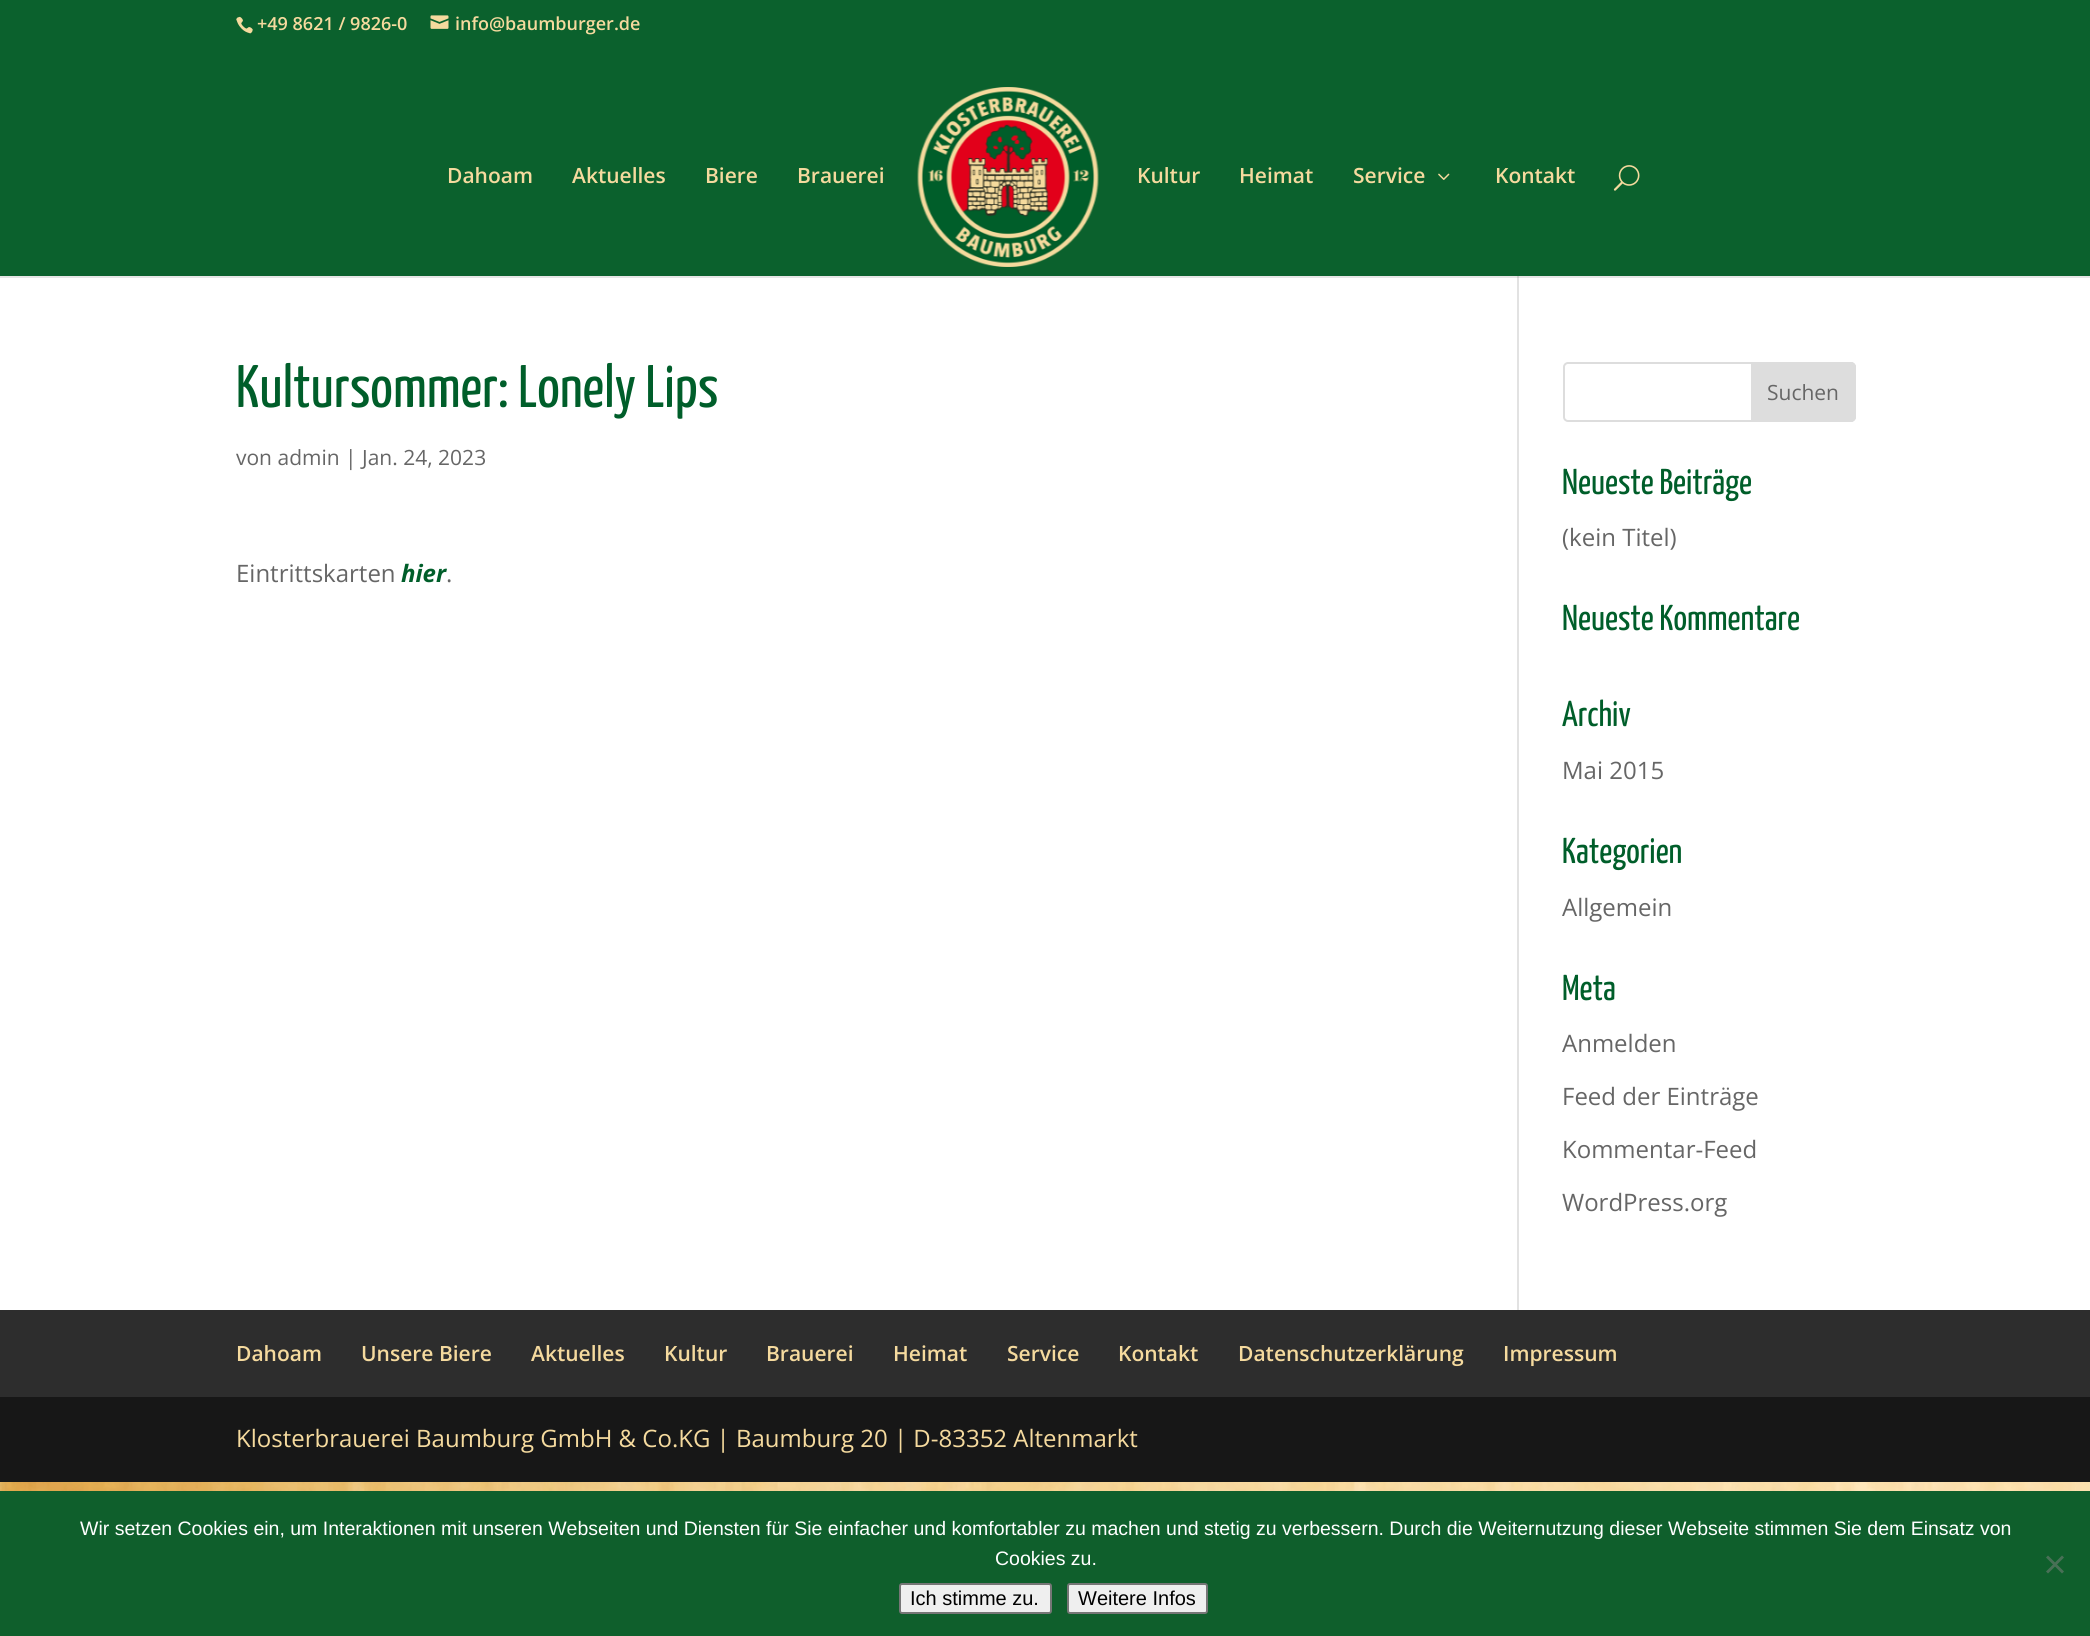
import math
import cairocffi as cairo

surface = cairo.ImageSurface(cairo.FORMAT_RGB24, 2090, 1636)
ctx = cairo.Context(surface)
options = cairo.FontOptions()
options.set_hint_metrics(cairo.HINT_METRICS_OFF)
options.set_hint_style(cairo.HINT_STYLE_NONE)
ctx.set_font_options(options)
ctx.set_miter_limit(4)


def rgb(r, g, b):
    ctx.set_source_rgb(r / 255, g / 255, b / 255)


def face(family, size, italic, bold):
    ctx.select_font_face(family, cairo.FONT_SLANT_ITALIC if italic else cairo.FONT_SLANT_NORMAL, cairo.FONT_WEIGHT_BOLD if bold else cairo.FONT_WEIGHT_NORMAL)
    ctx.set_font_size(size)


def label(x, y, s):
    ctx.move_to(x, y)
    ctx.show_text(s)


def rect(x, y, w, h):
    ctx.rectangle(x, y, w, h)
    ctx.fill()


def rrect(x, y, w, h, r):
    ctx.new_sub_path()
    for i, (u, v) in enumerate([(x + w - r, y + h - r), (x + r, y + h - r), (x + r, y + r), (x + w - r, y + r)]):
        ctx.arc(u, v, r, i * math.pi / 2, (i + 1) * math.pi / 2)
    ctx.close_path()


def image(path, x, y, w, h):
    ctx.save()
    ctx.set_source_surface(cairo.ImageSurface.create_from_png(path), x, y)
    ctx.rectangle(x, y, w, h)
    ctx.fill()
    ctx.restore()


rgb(255, 255, 255)
ctx.paint()
image('image0.png', 0, 1482, 2090, 9)
rgb(226, 226, 226)
rect(1517, 275, 2, 1035)
rgb(11, 97, 45)
rect(0, 0, 2090, 276)
image('image1.png', 236, 16, 17, 18)
face('Open Sans SemiBold', 18, 0, 0)
rgb(245, 218, 158)
label(257, 30, '+49 8621 / 9826-0')
image('image2.png', 430, 15, 19, 14)
label(455, 30, 'info@baumburger.de')
ctx.set_source_rgba(0, 0, 0, 0.1)
rect(0, 276, 2090, 2)
face('Open Sans SemiBold', 21, 0, 0)
rgb(245, 218, 158)
label(447, 183, 'Dahoam')
label(572, 183, 'Aktuelles')
label(705, 183, 'Biere')
label(797, 183, 'Brauerei')
image('image3.png', 917, 87, 182, 180)
label(1137, 183, 'Kultur')
label(1239, 183, 'Heimat')
label(1353, 183, 'Service')
image('image4.png', 1438, 173, 12, 7)
label(1495, 183, 'Kontakt')
image('image5.png', 1613, 165, 27, 26)
face('Yanone Kaffeesatz ExtraLight', 60, 0, 0)
rgb(0, 94, 42)
label(236, 407, 'Kultursommer: Lonely Lips')
face('Open Sans', 21, 0, 0)
rgb(102, 102, 102)
label(236, 465, 'von admin | Jan. 24, 2023')
face('Open Sans', 24, 0, 0)
label(236, 582, 'Eintrittskarten')
face('Open Sans', 24, 1, 1)
rgb(0, 94, 42)
label(401, 582, 'hier')
face('Open Sans', 24, 0, 0)
rgb(102, 102, 102)
label(446, 582, '.')
rrect(1564, 363, 291, 58, 4)
rgb(221, 221, 221)
ctx.stroke()
ctx.new_path()
ctx.move_to(1752, 363)
ctx.line_to(1851, 363)
ctx.curve_to(1853, 363, 1855, 365, 1855, 367)
ctx.line_to(1855, 417)
ctx.curve_to(1855, 419, 1853, 421, 1851, 421)
ctx.line_to(1752, 421)
ctx.close_path()
ctx.fill_preserve()
ctx.stroke()
face('Open Sans', 21, 0, 0)
rgb(102, 102, 102)
label(1767, 400, 'Suchen')
face('Yanone Kaffeesatz ExtraLight', 36, 0, 0)
rgb(0, 94, 42)
label(1562, 494, 'Neueste Beiträge')
face('Open Sans', 24, 0, 0)
rgb(102, 102, 102)
label(1562, 546, '(kein Titel)')
face('Yanone Kaffeesatz ExtraLight', 36, 0, 0)
rgb(0, 94, 42)
label(1562, 630, 'Neueste Kommentare')
label(1562, 726, 'Archiv')
face('Open Sans', 24, 0, 0)
rgb(102, 102, 102)
label(1562, 779, 'Mai 2015')
face('Yanone Kaffeesatz ExtraLight', 36, 0, 0)
rgb(0, 94, 42)
label(1562, 863, 'Kategorien')
face('Open Sans', 24, 0, 0)
rgb(102, 102, 102)
label(1562, 916, 'Allgemein')
face('Yanone Kaffeesatz ExtraLight', 36, 0, 0)
rgb(0, 94, 42)
label(1562, 1000, 'Meta')
face('Open Sans', 24, 0, 0)
rgb(102, 102, 102)
label(1562, 1052, 'Anmelden')
label(1562, 1105, 'Feed der Einträge')
label(1562, 1158, 'Kommentar-Feed')
label(1562, 1211, 'WordPress.org')
rgb(45, 45, 45)
rect(0, 1310, 2090, 87)
face('Open Sans SemiBold', 21, 0, 0)
rgb(245, 218, 158)
label(236, 1361, 'Dahoam')
label(361, 1361, 'Unsere Biere')
label(531, 1361, 'Aktuelles')
label(664, 1361, 'Kultur')
label(766, 1361, 'Brauerei')
label(893, 1361, 'Heimat')
label(1007, 1361, 'Service')
label(1118, 1361, 'Kontakt')
label(1238, 1361, 'Datenschutzerklärung')
label(1503, 1361, 'Impressum')
rgb(23, 23, 23)
rect(0, 1397, 2090, 85)
face('Open Sans', 24, 0, 0)
rgb(245, 218, 158)
label(236, 1447, 'Klosterbrauerei Baumburg GmbH & Co.KG | Baumburg 20 | D-83352 Altenmarkt')
rgb(15, 95, 44)
rect(0, 1491, 2090, 145)
face('Liberation Sans', 19.5, 0, 0)
rgb(255, 255, 255)
label(80, 1535, 'Wir setzen Cookies ein, um Interaktionen mit unseren Webseiten und Diensten für Sie einfacher und komfortabler zu machen und stetig zu verbessern. Durch die Weiternutzung dieser Webseite stimmen Sie dem Einsatz von')
label(995, 1565, 'Cookies zu.')
rgb(72, 112, 86)
ctx.new_path()
ctx.move_to(2062, 1555.5)
ctx.line_to(2064, 1557.5)
ctx.line_to(2048, 1573.5)
ctx.line_to(2046, 1571.5)
ctx.close_path()
ctx.fill()
ctx.new_path()
ctx.move_to(2046, 1557.5)
ctx.line_to(2048, 1555.5)
ctx.line_to(2064, 1571.5)
ctx.line_to(2062, 1573.5)
ctx.close_path()
ctx.fill()
rgb(239, 239, 239)
rrect(900, 1584, 151, 29, 2)
ctx.fill_preserve()
rgb(118, 118, 118)
ctx.stroke()
face('Liberation Sans', 20, 0, 0)
rgb(0, 0, 0)
label(910, 1605, 'Ich stimme zu.')
rgb(239, 239, 239)
rrect(1068, 1584, 139, 29, 2)
ctx.fill_preserve()
rgb(118, 118, 118)
ctx.stroke()
rgb(0, 0, 0)
label(1078, 1605, 'Weitere Infos')
surface.write_to_png('render.png')
